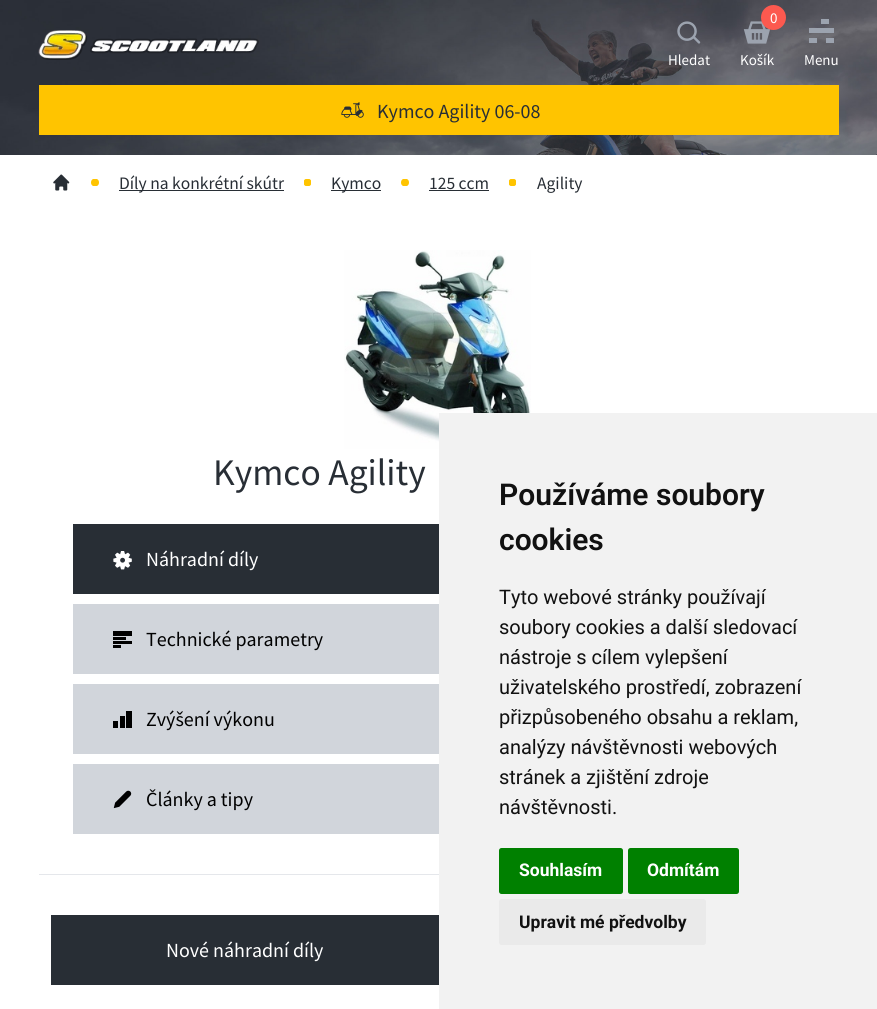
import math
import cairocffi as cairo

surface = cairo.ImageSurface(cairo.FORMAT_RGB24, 877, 1009)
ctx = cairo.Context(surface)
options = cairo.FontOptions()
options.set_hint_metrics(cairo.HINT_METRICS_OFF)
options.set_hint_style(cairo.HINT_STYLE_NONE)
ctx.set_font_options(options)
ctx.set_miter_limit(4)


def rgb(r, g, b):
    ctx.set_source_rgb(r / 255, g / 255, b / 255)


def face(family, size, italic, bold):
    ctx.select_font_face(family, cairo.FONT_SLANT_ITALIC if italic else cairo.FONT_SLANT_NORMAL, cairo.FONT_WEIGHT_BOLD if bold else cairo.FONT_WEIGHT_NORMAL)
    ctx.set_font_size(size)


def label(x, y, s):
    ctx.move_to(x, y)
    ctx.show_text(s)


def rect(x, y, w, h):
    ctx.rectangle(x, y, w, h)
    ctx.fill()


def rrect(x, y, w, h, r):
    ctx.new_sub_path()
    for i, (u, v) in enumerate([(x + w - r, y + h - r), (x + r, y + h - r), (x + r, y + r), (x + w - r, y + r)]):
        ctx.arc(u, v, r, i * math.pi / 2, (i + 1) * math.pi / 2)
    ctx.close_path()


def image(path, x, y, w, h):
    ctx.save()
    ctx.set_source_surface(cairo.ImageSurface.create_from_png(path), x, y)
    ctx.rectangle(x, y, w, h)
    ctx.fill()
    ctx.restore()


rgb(255, 255, 255)
ctx.paint()
image('image0.png', 0, 0, 877, 155)
image('image1.png', 38, 30, 221, 30)
image('image2.png', 677, 21, 24, 23)
face('Source Sans Pro', 15, 0, 0)
rgb(255, 255, 255)
label(668, 65, 'Hledat')
image('image3.png', 743, 21, 27, 23)
rgb(252, 89, 79)
ctx.arc(773.5, 17.5, 12.5, 0, 2 * math.pi)
ctx.fill()
rgb(255, 255, 255)
label(770, 23, '0')
label(740, 65, 'Košík')
rgb(156, 163, 175)
rect(809, 38, 8, 5)
rect(826, 38, 8, 5)
rect(809, 28, 25, 5)
rect(821, 19, 8, 5)
rgb(255, 255, 255)
label(804, 65, 'Menu')
rgb(255, 196, 0)
rect(39, 85, 800, 50)
image('image4.png', 341, 102, 23, 16)
face('Source Sans Pro', 20, 0, 0)
rgb(40, 46, 53)
label(377, 118, 'Kymco Agility 06-08')
image('image5.png', 53, 174, 17, 17)
ctx.save()
ctx.rectangle(91, 179, 8, 7)
ctx.clip()
rgb(255, 196, 0)
ctx.arc(95, 182.5, 4, 0, 2 * math.pi)
ctx.fill()
ctx.restore()
rect(119, 190, 165, 1)
face('Source Sans Pro', 17.5, 0, 0)
label(119, 189, 'Díly na konkrétní skútr')
ctx.save()
ctx.rectangle(304, 179, 7, 7)
ctx.clip()
rgb(255, 196, 0)
ctx.arc(307.5, 182.5, 4, 0, 2 * math.pi)
ctx.fill()
ctx.restore()
rect(331, 190, 50, 1)
label(331, 189, 'Kymco')
ctx.save()
ctx.rectangle(401, 179, 8, 7)
ctx.clip()
rgb(255, 196, 0)
ctx.arc(405, 182.5, 4, 0, 2 * math.pi)
ctx.fill()
ctx.restore()
label(429, 189, '125 ccm')
rect(429, 190, 60, 1)
ctx.save()
ctx.rectangle(509, 179, 7, 7)
ctx.clip()
rgb(255, 196, 0)
ctx.arc(512.5, 182.5, 4, 0, 2 * math.pi)
ctx.fill()
ctx.restore()
label(537, 189, 'Agility')
rgb(229, 231, 235)
rect(39, 874, 400, 1)
image('image6.png', 344, 250, 187, 199)
face('Source Sans Pro', 37.5, 0, 0)
rgb(40, 46, 53)
label(213, 485, 'Kymco Agility')
rect(73, 524, 366, 70)
image('image7.png', 113, 551, 19, 19)
face('Source Sans Pro', 20, 0, 0)
rgb(255, 255, 255)
label(146, 566, 'Náhradní díly')
rgb(209, 213, 219)
rect(73, 604, 366, 70)
rgb(0, 0, 0)
rect(113, 631, 19, 5)
rect(113, 637, 13, 3)
rect(113, 641, 19, 3)
rect(113, 645, 8, 3)
label(146, 646, 'Technické parametry')
rgb(209, 213, 219)
rect(73, 684, 366, 70)
rgb(0, 0, 0)
rect(126, 711, 6, 17)
rect(120, 716, 5, 12)
rect(113, 721, 5, 7)
label(146, 726, 'Zvýšení výkonu')
rgb(209, 213, 219)
rect(73, 764, 366, 70)
image('image8.png', 113, 790, 19, 19)
rgb(0, 0, 0)
label(146, 806, 'Články a tipy')
rgb(40, 46, 53)
rect(51, 915, 388, 70)
rgb(255, 255, 255)
label(166, 957, 'Nové náhradní díly')
rgb(242, 242, 242)
rect(439, 413, 438, 596)
face('Roboto SemiBold', 30, 0, 0)
rgb(17, 17, 17)
label(499, 505, 'Používáme soubory')
label(499, 550, 'cookies')
face('Roboto', 20, 0, 0)
label(499, 604, 'Tyto webové stránky používají')
label(499, 634, 'soubory cookies a další sledovací')
label(499, 664, 'nástroje s cílem vylepšení')
label(499, 694, 'uživatelského prostředí, zobrazení')
label(499, 724, 'přizpůsobeného obsahu a reklam,')
label(499, 754, 'analýzy návštěvnosti webových')
label(499, 784, 'stránek a zjištění zdroje')
label(499, 814, 'návštěvnosti.')
rgb(0, 128, 0)
rrect(499, 848, 124, 46, 2.5)
ctx.fill()
face('Roboto', 17.5, 0, 1)
rgb(255, 255, 255)
label(519, 876, 'Souhlasím')
rgb(0, 128, 0)
rrect(628, 848, 111, 46, 2.5)
ctx.fill()
rgb(255, 255, 255)
label(647, 876, 'Odmítám')
rgb(234, 234, 234)
rrect(499, 899, 207, 46, 2.5)
ctx.fill()
rgb(17, 17, 17)
label(519, 928, 'Upravit mé předvolby')
surface.write_to_png('render.png')
